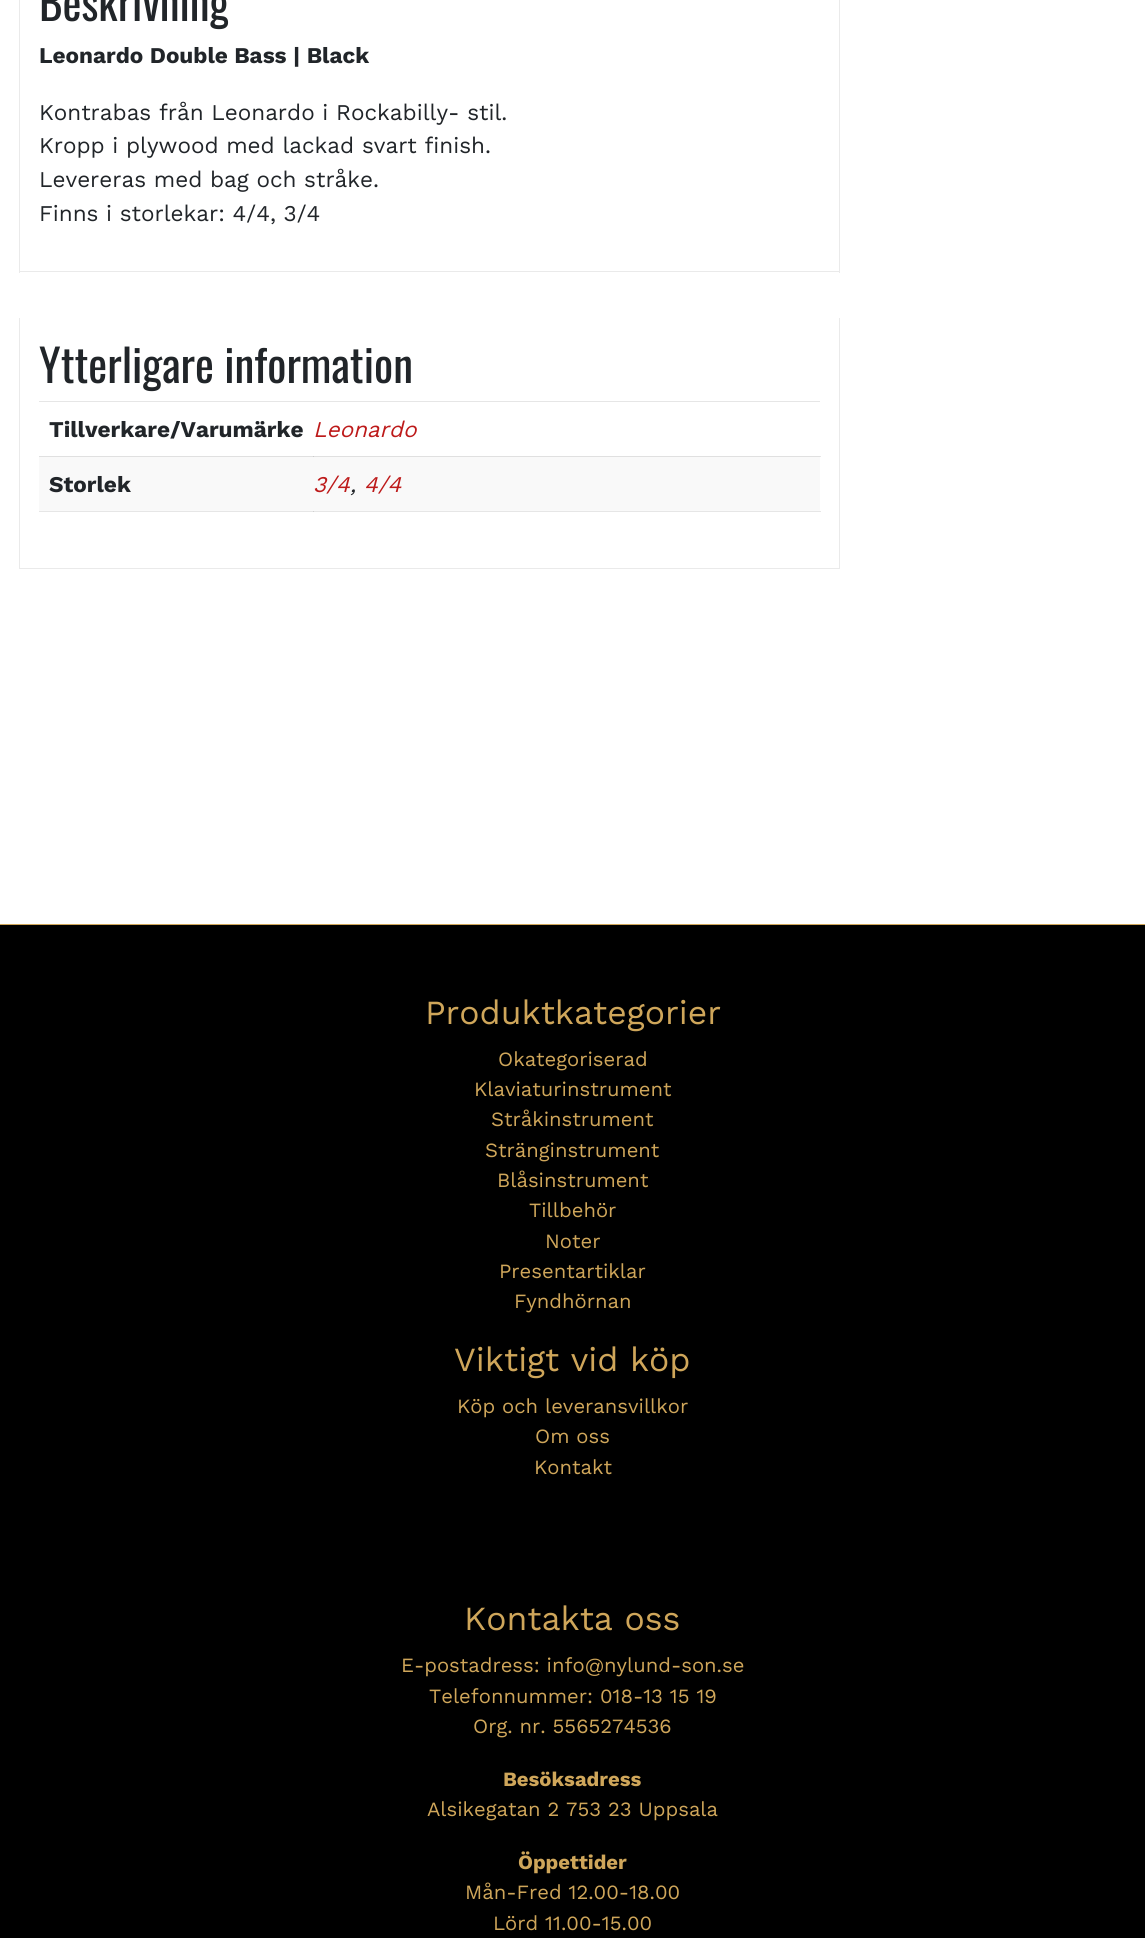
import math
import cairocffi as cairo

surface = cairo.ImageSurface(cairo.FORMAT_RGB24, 1145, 1938)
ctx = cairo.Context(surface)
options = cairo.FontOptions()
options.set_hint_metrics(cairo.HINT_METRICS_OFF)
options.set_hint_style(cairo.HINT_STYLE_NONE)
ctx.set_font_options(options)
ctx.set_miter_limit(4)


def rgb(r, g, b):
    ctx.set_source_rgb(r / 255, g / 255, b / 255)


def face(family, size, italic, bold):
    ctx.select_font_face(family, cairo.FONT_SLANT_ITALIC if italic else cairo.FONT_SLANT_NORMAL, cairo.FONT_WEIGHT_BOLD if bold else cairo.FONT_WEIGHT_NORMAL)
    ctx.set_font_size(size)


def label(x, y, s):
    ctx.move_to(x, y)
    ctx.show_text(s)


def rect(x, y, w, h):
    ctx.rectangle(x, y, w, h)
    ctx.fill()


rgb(0, 0, 0)
ctx.paint()
rgb(255, 255, 255)
rect(0, 0, 1145, 924)
rgb(230, 230, 230)
rect(820, 456, 1, 1)
rect(39, 511, 782, 1)
rgb(234, 234, 234)
rect(839, 0, 1, 273)
rect(19, 271, 821, 1)
rect(19, 0, 1, 273)
face('Oswald', 45, 0, 0)
rgb(33, 37, 41)
label(39, 21, 'Beskrivning')
face('Work Sans', 22.5, 0, 1)
label(39, 63, 'Leonardo Double Bass | Black')
face('Work Sans', 22.5, 0, 0)
label(39, 120, 'Kontrabas från Leonardo i Rockabilly- stil.')
label(39, 153, 'Kropp i plywood med lackad svart finish.')
label(39, 187, 'Levereras med bag och stråke.')
label(39, 221, 'Finns i storlekar: 4/4, 3/4')
rgb(234, 234, 234)
rect(839, 318, 1, 251)
rect(19, 568, 821, 1)
rect(19, 318, 1, 251)
face('Oswald', 45, 0, 0)
rgb(33, 37, 41)
label(39, 383, 'Ytterligare information')
rgb(230, 230, 230)
rect(39, 401, 781, 1)
face('Work Sans', 22.5, 0, 1)
rgb(33, 37, 41)
label(49, 437, 'Tillverkare/Varumärke')
face('Work Sans', 22.5, 1, 0)
rgb(189, 26, 26)
label(313, 437, 'Leonardo')
rgb(249, 249, 249)
rect(39, 457, 781, 54)
rgb(224, 224, 224)
rect(39, 456, 781, 1)
rgb(202, 202, 202)
rect(313, 456, 1, 1)
face('Work Sans', 22.5, 0, 1)
rgb(33, 37, 41)
label(49, 492, 'Storlek')
rgb(207, 207, 207)
rect(313, 511, 1, 1)
face('Work Sans', 22.5, 1, 0)
rgb(189, 26, 26)
label(313, 492, '3/4')
rgb(33, 37, 41)
label(350, 492, ',')
rgb(189, 26, 26)
label(364, 492, '4/4')
rgb(207, 166, 90)
rect(0, 924, 1145, 1)
face('Work Sans', 33.75, 0, 0)
label(425, 1024, 'Produktkategorier')
face('Work Sans', 20.25, 0, 0)
label(498, 1066, 'Okategoriserad')
label(474, 1096, 'Klaviaturinstrument')
label(491, 1126, 'Stråkinstrument')
label(485, 1157, 'Stränginstrument')
label(497, 1187, 'Blåsinstrument')
label(529, 1217, 'Tillbehör')
label(545, 1248, 'Noter')
label(499, 1278, 'Presentartiklar')
label(514, 1308, 'Fyndhörnan')
face('Work Sans', 33.75, 0, 0)
label(454, 1371, 'Viktigt vid köp')
face('Work Sans', 20.25, 0, 0)
label(457, 1413, 'Köp och leveransvillkor')
label(535, 1443, 'Om oss')
label(534, 1474, 'Kontakt')
face('Work Sans', 33.75, 0, 0)
label(464, 1630, 'Kontakta oss')
face('Work Sans', 20.25, 0, 0)
label(401, 1672, 'E-postadress: info@nylund-son.se')
label(429, 1703, 'Telefonnummer: 018-13 15 19')
label(473, 1733, 'Org. nr. 5565274536')
face('Work Sans', 20.25, 0, 1)
label(503, 1786, 'Besöksadress')
face('Work Sans', 20.25, 0, 0)
label(427, 1816, 'Alsikegatan 2 753 23 Uppsala')
face('Work Sans', 20.25, 0, 1)
label(518, 1869, 'Öppettider')
face('Work Sans', 20.25, 0, 0)
label(465, 1899, 'Mån-Fred 12.00-18.00')
label(493, 1930, 'Lörd 11.00-15.00')
surface.write_to_png('render.png')
